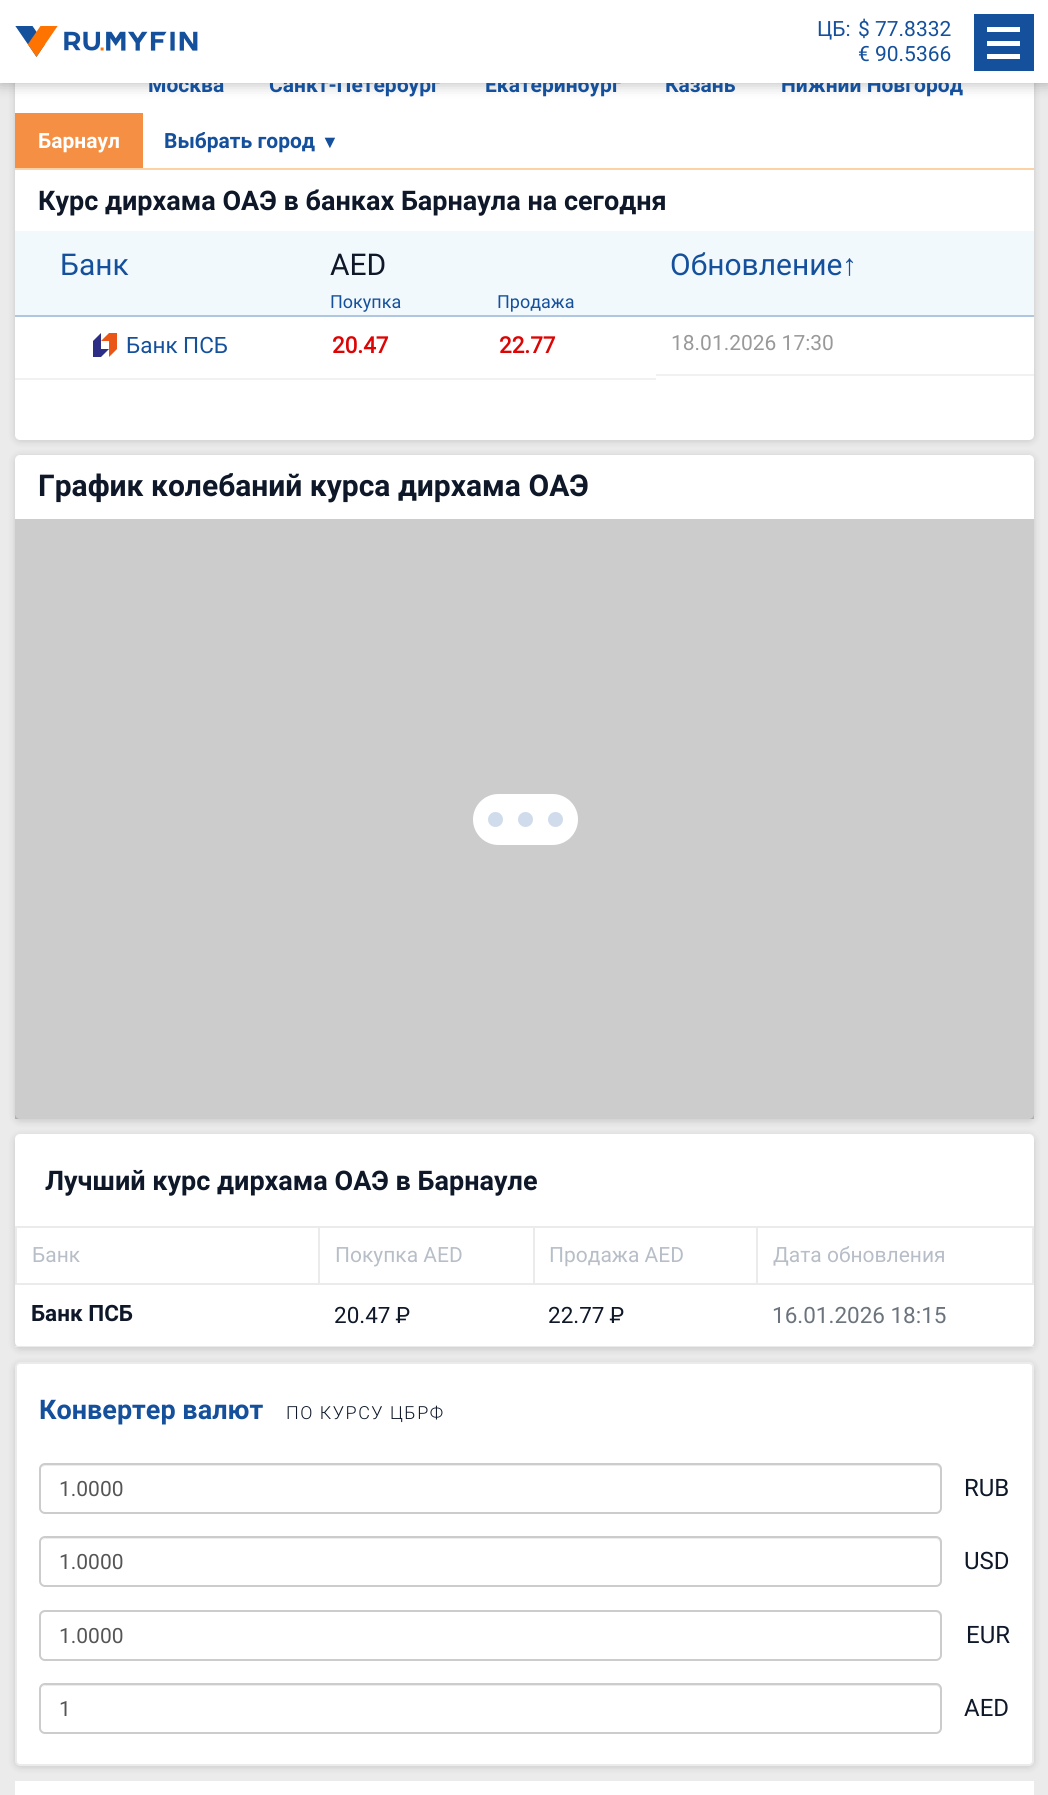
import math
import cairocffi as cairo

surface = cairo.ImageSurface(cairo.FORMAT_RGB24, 1048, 1795)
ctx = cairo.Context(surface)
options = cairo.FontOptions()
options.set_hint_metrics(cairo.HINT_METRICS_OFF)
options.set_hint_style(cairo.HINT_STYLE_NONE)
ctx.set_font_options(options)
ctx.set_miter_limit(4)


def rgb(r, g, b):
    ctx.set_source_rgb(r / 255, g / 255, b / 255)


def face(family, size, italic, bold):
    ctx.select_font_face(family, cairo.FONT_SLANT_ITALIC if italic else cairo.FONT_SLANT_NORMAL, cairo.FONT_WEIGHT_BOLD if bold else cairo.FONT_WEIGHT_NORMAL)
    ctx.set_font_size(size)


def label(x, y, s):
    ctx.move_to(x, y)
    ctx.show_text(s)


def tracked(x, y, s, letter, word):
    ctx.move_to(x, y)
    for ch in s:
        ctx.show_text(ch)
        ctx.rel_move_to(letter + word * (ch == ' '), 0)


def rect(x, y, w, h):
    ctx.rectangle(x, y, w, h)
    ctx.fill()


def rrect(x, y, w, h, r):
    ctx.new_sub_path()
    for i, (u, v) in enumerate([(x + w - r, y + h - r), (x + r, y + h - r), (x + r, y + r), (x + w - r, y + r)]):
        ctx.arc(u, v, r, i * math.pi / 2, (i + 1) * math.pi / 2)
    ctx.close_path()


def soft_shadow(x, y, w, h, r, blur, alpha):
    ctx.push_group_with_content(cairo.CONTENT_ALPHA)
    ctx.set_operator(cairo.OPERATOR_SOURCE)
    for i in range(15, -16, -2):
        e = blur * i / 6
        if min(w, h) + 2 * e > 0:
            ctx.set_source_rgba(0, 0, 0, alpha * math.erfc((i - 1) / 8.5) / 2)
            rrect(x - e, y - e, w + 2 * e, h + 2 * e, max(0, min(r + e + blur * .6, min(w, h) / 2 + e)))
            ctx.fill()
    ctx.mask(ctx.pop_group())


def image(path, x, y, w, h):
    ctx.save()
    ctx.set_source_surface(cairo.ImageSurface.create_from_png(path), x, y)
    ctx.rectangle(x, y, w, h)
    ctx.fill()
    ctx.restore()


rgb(235, 235, 235)
ctx.paint()
rgb(0, 0, 0)
soft_shadow(15, 60, 1019, 381, 5, 4, 0.15)
rgb(255, 255, 255)
rrect(15, 59, 1019, 381, 5)
ctx.fill()
rgb(0, 0, 0)
soft_shadow(0, 0, 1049, 83, 0, 7.5, 0.3)
face('Roboto', 21, 0, 1)
rgb(20, 80, 156)
label(148, 92, 'Москва')
label(269, 92, 'Санкт-Петербург')
label(485, 92, 'Екатеринбург')
label(665, 92, 'Казань')
label(781, 92, 'Нижний Новгород')
rgb(255, 255, 255)
rect(0, 0, 1048, 83)
image('image0.png', 15, 26, 183, 31)
face('Roboto', 21, 0, 0)
rgb(20, 80, 156)
label(817, 36, 'ЦБ:')
label(858, 36, '$ 77.8332')
label(858, 61, '€ 90.5366')
rect(974, 14, 60, 57)
rgb(255, 255, 255)
rect(987, 27, 33, 5)
rect(987, 41, 33, 5)
rect(987, 54, 33, 5)
rgb(252, 210, 165)
rect(15, 168, 1019, 2)
rgb(244, 143, 68)
rect(15, 113, 128, 55)
face('Roboto', 21, 0, 1)
rgb(255, 255, 255)
label(38, 148, 'Барнаул')
rgb(20, 80, 156)
label(164, 148, 'Выбрать город')
face('Liberation Serif', 18, 0, 0)
label(321, 148, '▼')
face('Roboto', 27, 0, 1)
rgb(14, 24, 41)
label(38, 210, 'Курс дирхама ОАЭ в банках Барнаула на сегодня')
rgb(242, 249, 253)
rect(15, 231, 1019, 84)
rgb(175, 198, 224)
rect(15, 315, 467, 2)
face('Roboto', 30, 0, 0)
rgb(20, 80, 156)
label(60, 275, 'Банк')
rgb(14, 24, 41)
label(330, 275, 'AED')
rgb(175, 198, 224)
rect(482, 315, 552, 2)
rgb(20, 80, 156)
label(670, 275, 'Обновление')
face('Liberation Serif', 30, 0, 0)
label(842, 275, '↑')
face('Roboto', 18, 0, 0)
label(330, 308, 'Покупка')
label(497, 308, 'Продажа')
rgb(241, 241, 241)
rect(15, 378, 641, 2)
image('image1.png', 93, 333, 24, 24)
face('Roboto', 22.5, 0, 0)
rgb(20, 80, 156)
label(126, 353, 'Банк ПСБ')
face('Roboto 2', 22.5, 0, 1)
rgb(221, 4, 4)
label(332, 353, '20.47')
label(499, 353, '22.77')
rgb(241, 241, 241)
rect(656, 374, 378, 2)
face('Roboto', 21, 0, 0)
rgb(153, 153, 153)
label(671, 350, '18.01.2026 17:30')
rgb(0, 0, 0)
soft_shadow(15, 456, 1019, 665, 5, 4, 0.15)
rgb(255, 255, 255)
rrect(15, 455, 1019, 664, 5)
ctx.fill()
face('Roboto', 30, 0, 1)
rgb(14, 24, 41)
label(38, 496, 'График колебаний курса дирхама ОАЭ')
ctx.set_source_rgba(0, 0, 0, 0.2)
rect(15, 519, 1019, 600)
rgb(255, 255, 255)
rrect(473, 794, 105, 51, 25.5)
ctx.fill()
rgb(208, 220, 235)
ctx.arc(495.5, 819.5, 7.5, 0, 2 * math.pi)
ctx.fill()
ctx.arc(525.5, 819.5, 7.5, 0, 2 * math.pi)
ctx.fill()
ctx.arc(555.5, 819.5, 7.5, 0, 2 * math.pi)
ctx.fill()
rgb(0, 0, 0)
soft_shadow(15, 1136, 1019, 213, 5, 4, 0.15)
rgb(255, 255, 255)
rrect(15, 1134, 1019, 213, 5)
ctx.fill()
face('Roboto', 27, 0, 1)
rgb(14, 24, 41)
label(45, 1190, 'Лучший курс дирхама ОАЭ в Барнауле')
rgb(235, 235, 235)
rect(756, 1226, 278, 2)
rect(1032, 1226, 2, 58)
rect(756, 1283, 278, 2)
rect(756, 1226, 2, 58)
rect(533, 1226, 225, 2)
rect(533, 1283, 225, 2)
rect(533, 1226, 2, 58)
rect(318, 1226, 216, 2)
rect(318, 1283, 216, 2)
rect(318, 1226, 2, 58)
rect(15, 1226, 305, 2)
rect(15, 1283, 305, 2)
rect(15, 1226, 2, 58)
face('Roboto', 21, 0, 0)
rgb(183, 190, 199)
label(32, 1262, 'Банк')
label(335, 1262, 'Покупка AED')
label(549, 1262, 'Продажа AED')
label(773, 1262, 'Дата обновления')
face('Roboto', 22.5, 0, 1)
rgb(14, 24, 41)
label(31, 1321, 'Банк ПСБ')
face('Roboto', 22.5, 0, 0)
label(334, 1323, '20.47 ₽')
label(548, 1323, '22.77 ₽')
rgb(235, 235, 235)
rect(15, 1346, 1019, 1)
rgb(107, 115, 125)
label(772, 1323, '16.01.2026 18:15')
rgb(0, 0, 0)
soft_shadow(15, 1364, 1019, 403, 5, 4, 0.15)
rgb(255, 255, 255)
rrect(16, 1363, 1017, 402, 4)
ctx.fill_preserve()
rgb(235, 235, 235)
ctx.stroke()
face('Roboto', 27, 0, 1)
rgb(20, 80, 156)
label(39, 1419, 'Конвертер валют')
face('Roboto Light', 18, 0, 0)
rgb(14, 24, 41)
tracked(286, 1419, 'ПО КУРСУ ЦБРФ', 1.5, 0)
rgb(236, 236, 236)
ctx.new_path()
ctx.move_to(45, 1466)
ctx.line_to(936, 1466)
ctx.curve_to(938, 1466, 940, 1468, 940, 1470)
ctx.line_to(940, 1510)
ctx.curve_to(941, 1509, 941, 1508, 941, 1507)
ctx.line_to(941, 1469)
ctx.curve_to(941, 1466, 939, 1464, 936, 1464)
ctx.line_to(46, 1464)
ctx.curve_to(44, 1464, 42, 1466, 41, 1468)
ctx.curve_to(42, 1467, 44, 1466, 45, 1466)
ctx.close_path()
ctx.fill()
rrect(40, 1464, 901, 49, 5)
rgb(204, 204, 204)
ctx.stroke()
face('Roboto', 21, 0, 0)
rgb(85, 85, 85)
label(59, 1496, '1.0000')
face('Roboto', 24, 0, 0)
rgb(14, 24, 41)
label(964, 1496, 'RUB')
rgb(236, 236, 236)
ctx.new_path()
ctx.move_to(45, 1539)
ctx.line_to(936, 1539)
ctx.curve_to(938, 1539, 940, 1541, 940, 1544)
ctx.line_to(940, 1582)
ctx.line_to(939, 1585)
ctx.curve_to(940, 1584, 941, 1582, 941, 1581)
ctx.line_to(941, 1543)
ctx.curve_to(941, 1540, 939, 1538, 936, 1538)
ctx.line_to(46, 1538)
ctx.curve_to(44, 1538, 43, 1539, 42, 1540)
ctx.close_path()
ctx.fill()
rrect(40, 1537, 901, 49, 5)
rgb(204, 204, 204)
ctx.stroke()
face('Roboto', 21, 0, 0)
rgb(85, 85, 85)
label(59, 1569, '1.0000')
face('Roboto', 24, 0, 0)
rgb(14, 24, 41)
label(964, 1569, 'USD')
rgb(236, 236, 236)
ctx.new_path()
ctx.move_to(45, 1612)
ctx.line_to(936, 1612)
ctx.curve_to(938, 1612, 940, 1615, 940, 1617)
ctx.line_to(940, 1657)
ctx.curve_to(941, 1656, 941, 1655, 941, 1654)
ctx.line_to(941, 1616)
ctx.curve_to(941, 1613, 939, 1611, 936, 1611)
ctx.line_to(46, 1611)
ctx.curve_to(44, 1611, 42, 1612, 41, 1614)
ctx.curve_to(42, 1613, 44, 1612, 45, 1612)
ctx.close_path()
ctx.fill()
rrect(40, 1611, 901, 49, 5)
rgb(204, 204, 204)
ctx.stroke()
face('Roboto', 21, 0, 0)
rgb(85, 85, 85)
label(59, 1643, '1.0000')
face('Roboto', 24, 0, 0)
rgb(14, 24, 41)
label(966, 1643, 'EUR')
rgb(236, 236, 236)
ctx.new_path()
ctx.move_to(45, 1686)
ctx.line_to(936, 1686)
ctx.curve_to(938, 1686, 940, 1688, 940, 1690)
ctx.line_to(940, 1731)
ctx.curve_to(941, 1730, 941, 1729, 941, 1728)
ctx.line_to(941, 1690)
ctx.curve_to(941, 1687, 939, 1685, 936, 1685)
ctx.line_to(46, 1685)
ctx.curve_to(44, 1685, 43, 1686, 42, 1687)
ctx.close_path()
ctx.fill()
rrect(40, 1684, 901, 49, 5)
rgb(204, 204, 204)
ctx.stroke()
face('Roboto', 21, 0, 0)
rgb(85, 85, 85)
label(59, 1716, '1')
face('Roboto', 24, 0, 0)
rgb(14, 24, 41)
label(964, 1716, 'AED')
rgb(255, 255, 255)
rect(15, 1781, 1019, 14)
surface.write_to_png('render.png')
